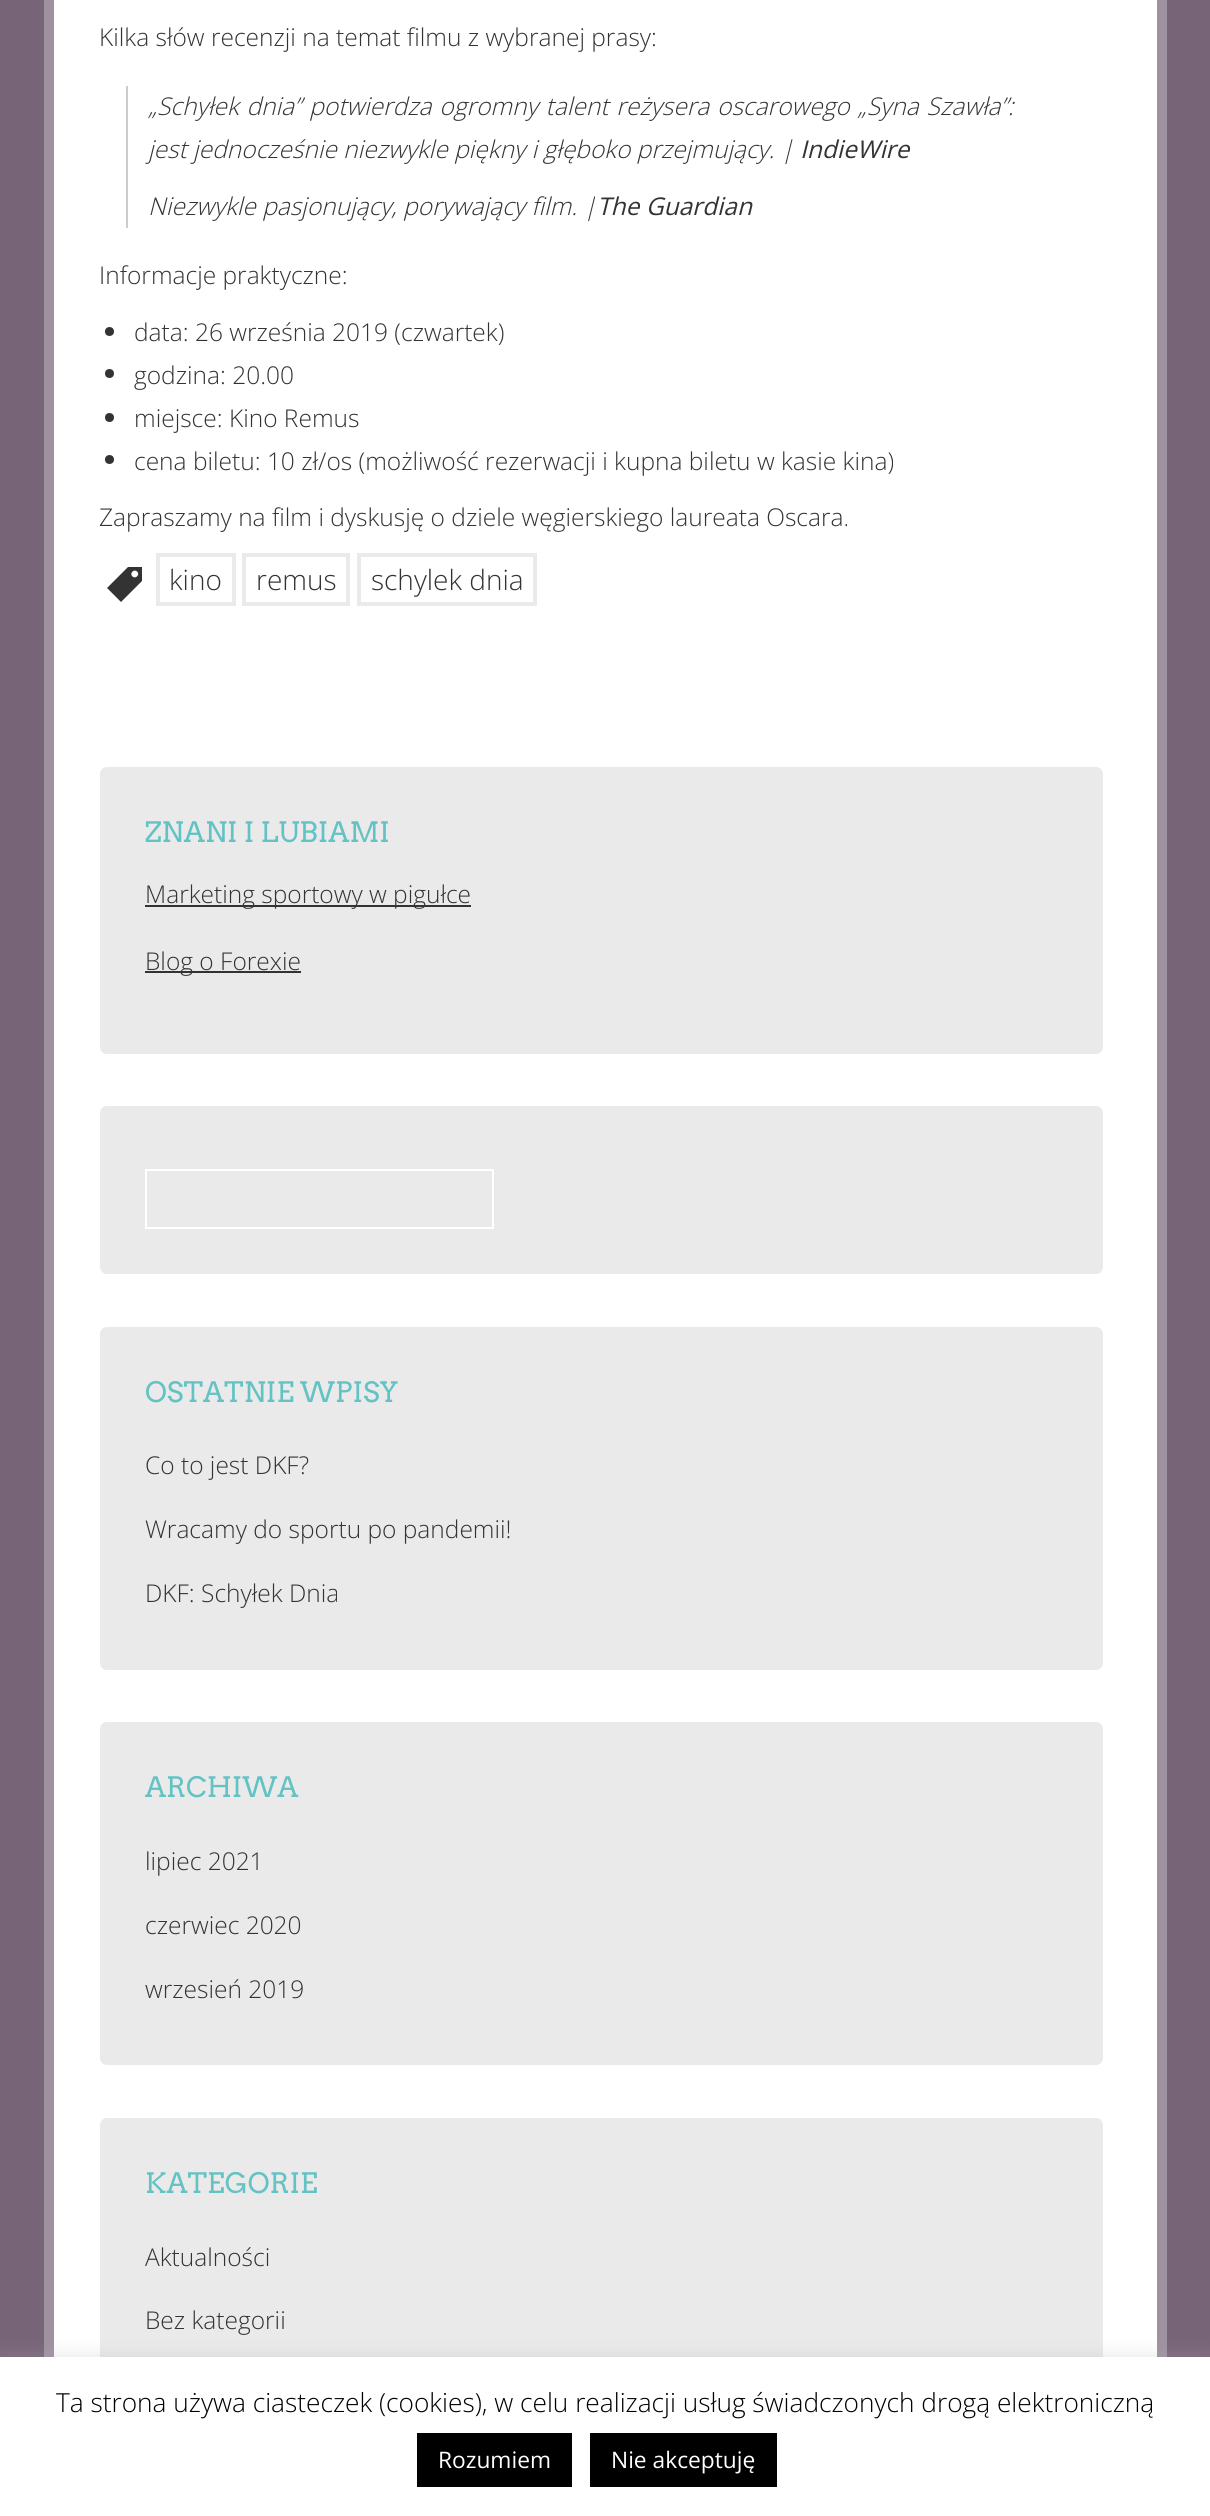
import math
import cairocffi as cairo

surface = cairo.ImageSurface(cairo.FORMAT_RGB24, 1210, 2516)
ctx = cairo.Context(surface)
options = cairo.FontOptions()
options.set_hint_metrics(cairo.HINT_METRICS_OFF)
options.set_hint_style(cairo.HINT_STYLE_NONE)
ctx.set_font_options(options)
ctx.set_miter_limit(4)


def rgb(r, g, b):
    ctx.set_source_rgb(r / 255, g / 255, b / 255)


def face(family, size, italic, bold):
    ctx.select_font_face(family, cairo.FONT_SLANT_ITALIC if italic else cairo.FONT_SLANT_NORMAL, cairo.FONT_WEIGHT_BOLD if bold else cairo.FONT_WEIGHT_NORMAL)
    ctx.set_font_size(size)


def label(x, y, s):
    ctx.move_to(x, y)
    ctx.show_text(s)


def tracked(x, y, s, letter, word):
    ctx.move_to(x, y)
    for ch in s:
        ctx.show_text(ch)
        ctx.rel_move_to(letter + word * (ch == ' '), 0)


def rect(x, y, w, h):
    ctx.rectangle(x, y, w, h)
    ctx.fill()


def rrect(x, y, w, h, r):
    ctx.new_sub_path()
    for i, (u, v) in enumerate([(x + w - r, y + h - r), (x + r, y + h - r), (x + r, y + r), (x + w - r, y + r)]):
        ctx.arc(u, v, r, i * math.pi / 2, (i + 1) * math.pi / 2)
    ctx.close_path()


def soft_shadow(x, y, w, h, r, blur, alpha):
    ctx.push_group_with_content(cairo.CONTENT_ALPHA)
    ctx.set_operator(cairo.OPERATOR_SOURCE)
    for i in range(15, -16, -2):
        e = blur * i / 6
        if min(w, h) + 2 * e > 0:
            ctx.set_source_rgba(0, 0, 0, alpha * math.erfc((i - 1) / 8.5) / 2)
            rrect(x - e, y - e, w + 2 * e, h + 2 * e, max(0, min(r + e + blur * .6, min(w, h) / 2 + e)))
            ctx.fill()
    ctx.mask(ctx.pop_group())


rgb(119, 101, 119)
ctx.paint()
rgb(159, 146, 159)
rect(44, 0, 1123, 2357)
rgb(255, 255, 255)
rect(54, 0, 1103, 2357)
face('Open Sans Light', 24.5, 0, 0)
rgb(51, 51, 51)
label(99, 46, 'Kilka słów recenzji na temat filmu z wybranej prasy:')
rgb(204, 204, 204)
rect(126, 86, 2, 142)
face('Open Sans Light', 24.5, 1, 0)
rgb(51, 51, 51)
label(148, 115, '„')
tracked(157, 115, 'Schyłek dnia” potwierdza ogromny talent reżysera oscarowego „Syna Szawła”:', 0, 1.5)
label(148, 158, 'jest jednocześnie niezwykle piękny i głęboko przejmujący. |')
face('Open Sans', 24.5, 1, 0)
label(800, 158, 'IndieWire')
face('Open Sans Light', 24.5, 1, 0)
label(148, 215, 'Niezwykle pasjonujący, porywający film. |')
face('Open Sans', 24.5, 1, 0)
label(597, 215, 'The Guardian')
face('Open Sans Light', 24.5, 0, 0)
label(99, 284, 'Informacje praktyczne:')
ctx.new_path()
ctx.arc(109.5, 331.5, 4.5, 0, 2 * math.pi)
ctx.fill()
label(134, 341, 'data: 26 września 2019 (czwartek)')
ctx.new_path()
ctx.arc(109.5, 373.5, 4.5, 0, 2 * math.pi)
ctx.fill()
label(134, 384, 'godzina: 20.00')
ctx.new_path()
ctx.arc(109.5, 417.5, 4.5, 0, 2 * math.pi)
ctx.fill()
label(134, 427, 'miejsce: Kino Remus')
ctx.new_path()
ctx.arc(109.5, 459.5, 4.5, 0, 2 * math.pi)
ctx.fill()
label(134, 470, 'cena biletu: 10 zł/os (możliwość rezerwacji i kupna biletu w kasie kina)')
label(99, 526, 'Zapraszamy na film i dyskusję o dziele węgierskiego laureata Oscara.')
ctx.new_path()
ctx.move_to(128, 567)
ctx.line_to(142, 567)
ctx.line_to(142, 581)
ctx.line_to(121, 602)
ctx.line_to(107, 588)
ctx.close_path()
ctx.move_to(132.5, 576.5)
ctx.curve_to(135.5, 579.5, 140.5, 574.5, 137, 571.5)
ctx.curve_to(134, 568.5, 129, 573.5, 132.5, 576.5)
ctx.close_path()
ctx.fill()
ctx.rectangle(158, 555, 76, 49)
rgb(234, 234, 234)
ctx.set_line_width(4)
ctx.stroke()
face('Open Sans Light', 28, 0, 0)
rgb(51, 51, 51)
label(169, 590, 'kino')
ctx.rectangle(244, 555, 104, 49)
rgb(234, 234, 234)
ctx.stroke()
rgb(51, 51, 51)
label(256, 590, 'remus')
ctx.rectangle(359, 555, 176, 49)
rgb(234, 234, 234)
ctx.stroke()
rgb(51, 51, 51)
label(371, 590, 'schylek dnia')
rgb(234, 234, 234)
rrect(100, 767, 1003, 287, 7)
ctx.fill()
face('Arvo', 28, 0, 0)
rgb(99, 194, 195)
label(145, 842, 'ZNANI I LUBIAMI')
rgb(51, 51, 51)
rect(145, 905, 326, 2)
face('Open Sans Light', 24.5, 0, 0)
label(145, 903, 'Marketing sportowy w pigułce')
rect(145, 971, 156, 2)
label(145, 970, 'Blog o Forexie')
rgb(234, 234, 234)
rrect(100, 1106, 1003, 168, 7)
ctx.fill()
ctx.rectangle(146, 1170, 347, 58)
rgb(255, 255, 255)
ctx.set_line_width(2)
ctx.stroke()
rgb(234, 234, 234)
rrect(100, 1327, 1003, 343, 7)
ctx.fill()
face('Arvo', 28, 0, 0)
rgb(99, 194, 195)
label(145, 1402, 'OSTATNIE WPISY')
face('Open Sans Light', 24.5, 0, 0)
rgb(51, 51, 51)
label(145, 1474, 'Co to jest DKF?')
label(145, 1538, 'Wracamy do sportu po pandemii!')
label(145, 1602, 'DKF: Schyłek Dnia')
rgb(234, 234, 234)
rrect(100, 1722, 1003, 343, 7)
ctx.fill()
face('Arvo', 28, 0, 0)
rgb(99, 194, 195)
label(145, 1797, 'ARCHIWA')
face('Open Sans Light', 24.5, 0, 0)
rgb(51, 51, 51)
label(145, 1870, 'lipiec 2021')
label(145, 1934, 'czerwiec 2020')
label(145, 1998, 'wrzesień 2019')
rgb(234, 234, 234)
rrect(100, 2118, 1003, 280, 7)
ctx.fill()
face('Arvo', 28, 0, 0)
rgb(99, 194, 195)
label(145, 2193, 'KATEGORIE')
face('Open Sans Light', 24.5, 0, 0)
rgb(51, 51, 51)
label(145, 2266, 'Aktualności')
label(145, 2329, 'Bez kategorii')
rgb(172, 171, 171)
soft_shadow(0, 2356, 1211, 159, 0, 9, 0.3)
rgb(255, 255, 255)
rect(0, 2357, 1210, 159)
face('Open Sans Light', 26.25, 0, 0)
rgb(0, 0, 0)
label(56, 2412, 'Ta strona używa ciasteczek (cookies), w celu realizacji usług świadczonych drogą elektroniczną')
rect(417, 2433, 155, 54)
face('Open Sans', 22.75, 0, 0)
rgb(255, 255, 255)
label(438, 2468, 'Rozumiem')
rgb(0, 0, 0)
rect(590, 2433, 187, 54)
rgb(255, 255, 255)
label(611, 2468, 'Nie akceptuję')
surface.write_to_png('render.png')
